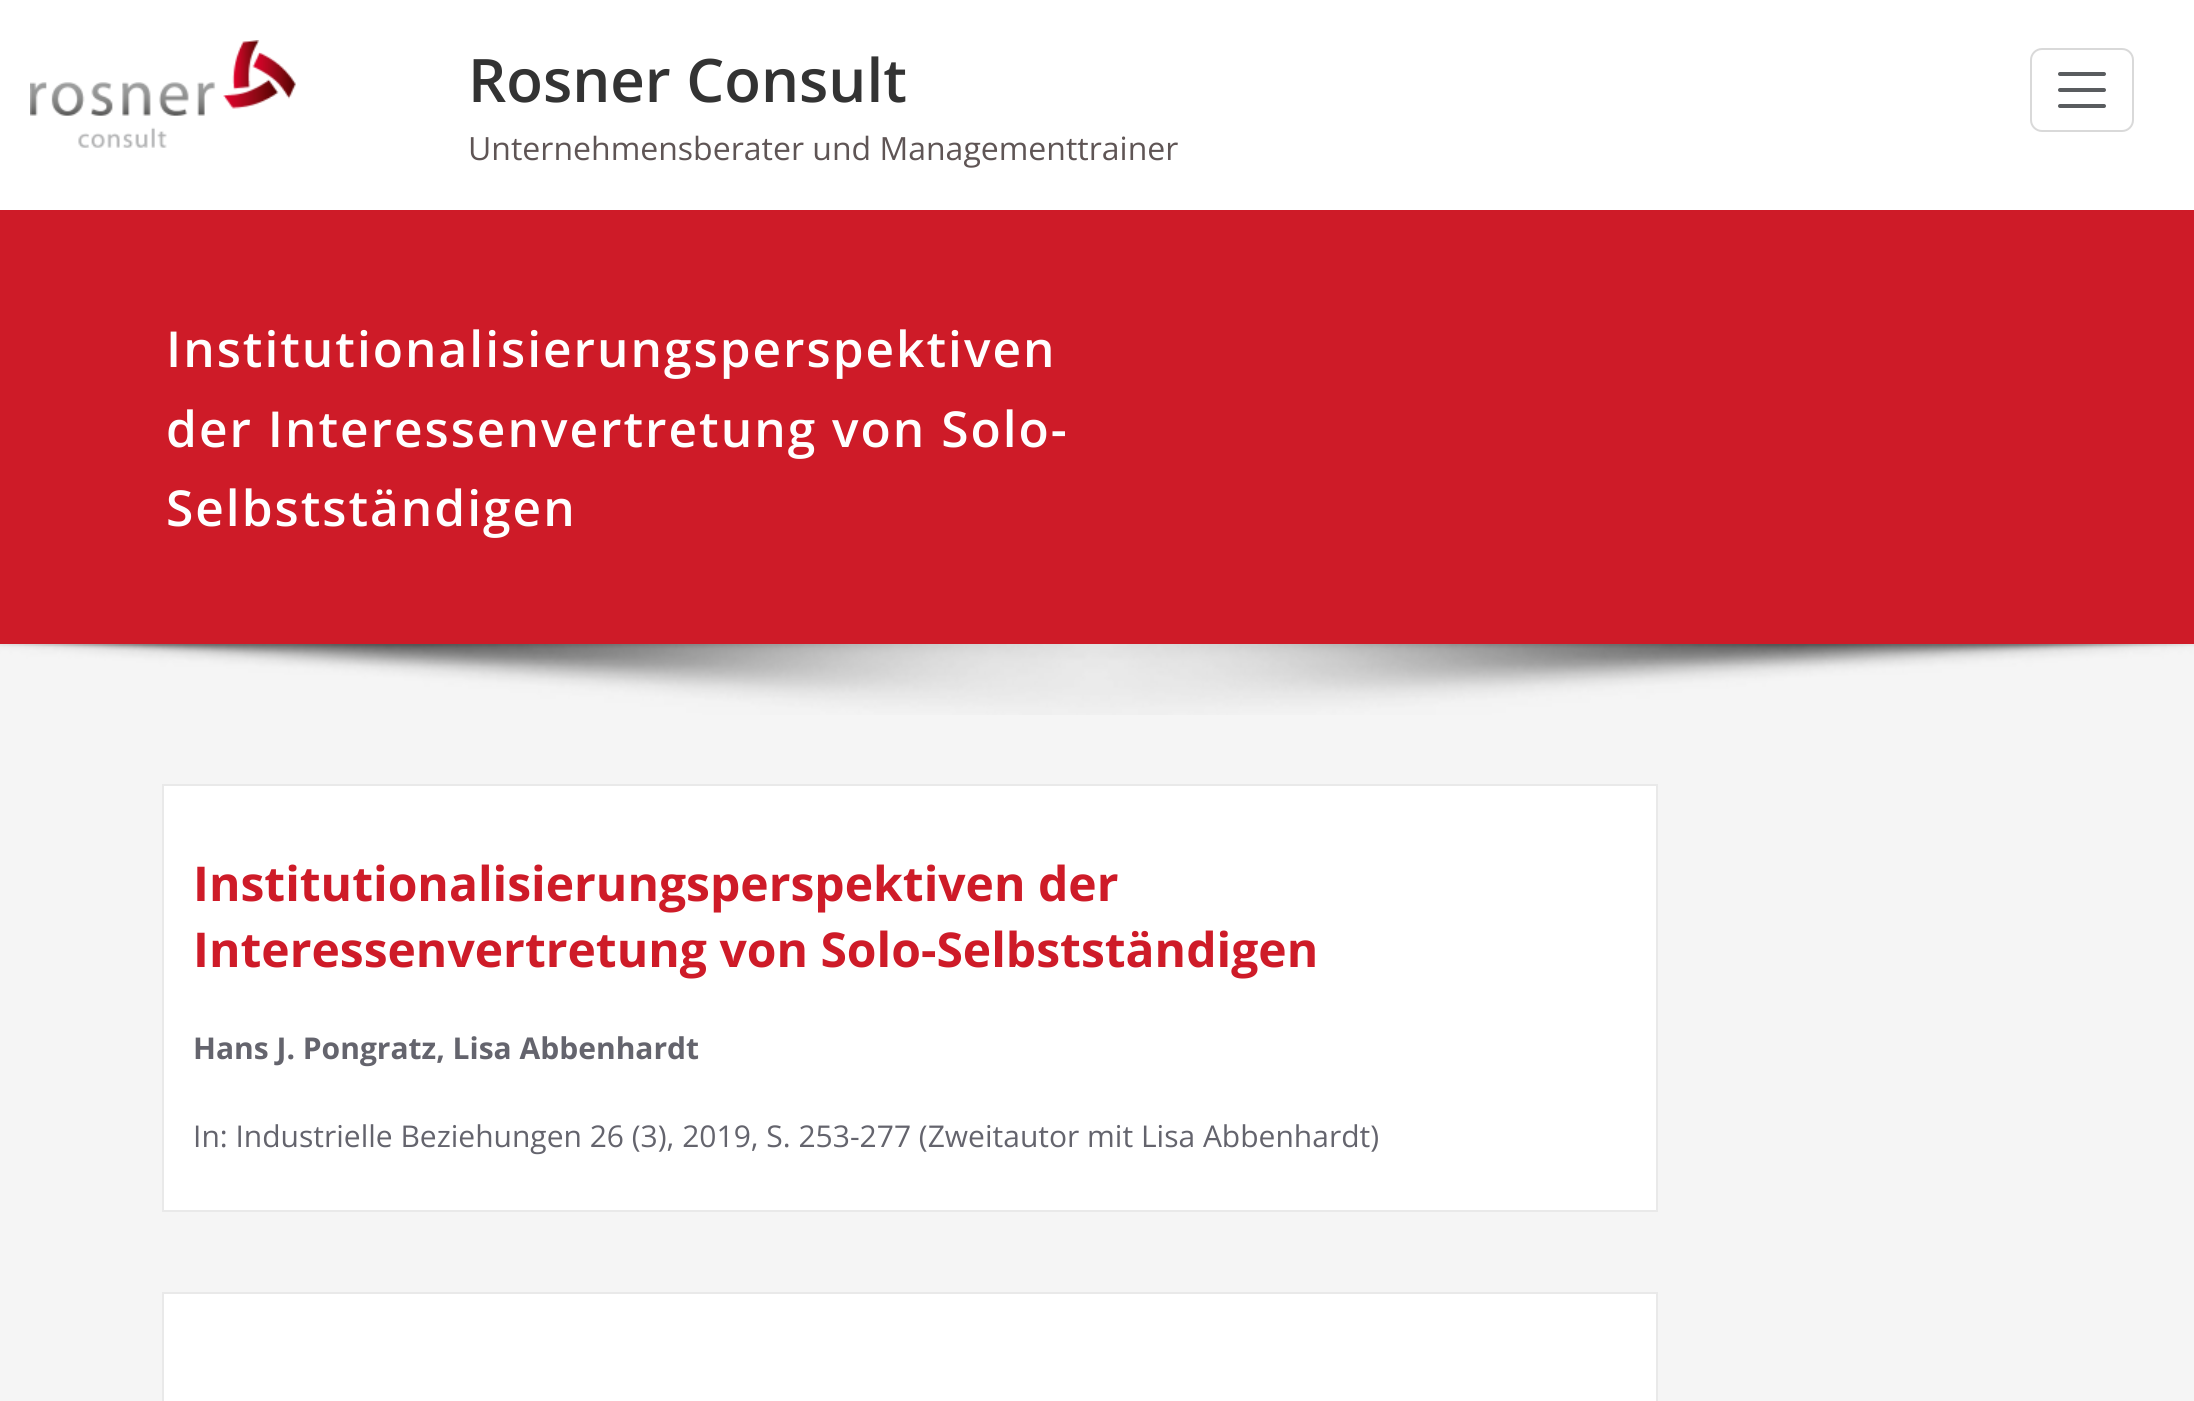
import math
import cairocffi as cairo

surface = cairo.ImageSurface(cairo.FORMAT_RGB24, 2194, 1401)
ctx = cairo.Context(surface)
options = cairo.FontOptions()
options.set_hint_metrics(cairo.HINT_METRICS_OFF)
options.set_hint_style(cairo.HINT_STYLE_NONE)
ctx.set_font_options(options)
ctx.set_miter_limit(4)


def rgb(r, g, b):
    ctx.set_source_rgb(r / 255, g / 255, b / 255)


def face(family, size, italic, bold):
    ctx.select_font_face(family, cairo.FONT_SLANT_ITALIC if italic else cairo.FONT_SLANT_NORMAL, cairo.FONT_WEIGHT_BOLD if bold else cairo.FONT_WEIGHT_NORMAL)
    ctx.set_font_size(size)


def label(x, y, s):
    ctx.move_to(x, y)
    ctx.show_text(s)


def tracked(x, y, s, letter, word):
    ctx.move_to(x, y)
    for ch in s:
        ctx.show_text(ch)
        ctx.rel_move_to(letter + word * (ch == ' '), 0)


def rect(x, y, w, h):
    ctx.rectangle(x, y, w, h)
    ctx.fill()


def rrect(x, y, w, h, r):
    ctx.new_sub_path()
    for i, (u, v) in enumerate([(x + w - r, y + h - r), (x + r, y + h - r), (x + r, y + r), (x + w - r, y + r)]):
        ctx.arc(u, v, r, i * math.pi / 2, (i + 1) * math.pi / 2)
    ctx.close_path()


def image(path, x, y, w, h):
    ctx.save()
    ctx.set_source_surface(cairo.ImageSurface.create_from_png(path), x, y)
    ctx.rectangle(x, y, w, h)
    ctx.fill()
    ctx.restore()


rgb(245, 245, 245)
ctx.paint()
rgb(255, 255, 255)
rect(0, 0, 2194, 210)
image('image0.png', 30, 40, 266, 108)
face('Open Sans SemiBold', 60, 0, 0)
rgb(51, 51, 51)
label(468, 102, 'Rosner Consult')
face('Open Sans', 32, 0, 0)
rgb(95, 85, 85)
label(468, 160, 'Unternehmensberater und Managementtrainer')
rrect(2031, 49, 102, 82, 11)
rgb(217, 217, 217)
ctx.stroke()
ctx.new_path()
ctx.move_to(2060, 74)
ctx.line_to(2104, 74)
ctx.move_to(2060, 90)
ctx.line_to(2104, 90)
ctx.move_to(2060, 106)
ctx.line_to(2104, 106)
rgb(89, 92, 95)
ctx.set_line_width(4)
ctx.set_line_cap(cairo.LINE_CAP_ROUND)
ctx.stroke()
rgb(206, 27, 40)
rect(0, 210, 2194, 434)
face('Open Sans SemiBold', 49.6, 0, 0)
rgb(255, 255, 255)
tracked(166, 367, 'Institutionalisierungsperspektiven', 2, 0)
tracked(166, 447, 'der Interessenvertretung von Solo-', 2, 0)
tracked(166, 526, 'Selbstständigen', 2, 0)
image('image1.png', 0, 644, 2194, 71)
ctx.rectangle(163, 785, 1494, 426)
ctx.fill_preserve()
rgb(233, 233, 233)
ctx.set_line_width(2)
ctx.set_line_cap(cairo.LINE_CAP_BUTT)
ctx.stroke()
face('Open Sans', 48, 0, 1)
rgb(206, 27, 40)
label(193, 901, 'Institutionalisierungsperspektiven der')
label(193, 967, 'Interessenvertretung von Solo-Selbstständigen')
face('Open Sans', 30, 0, 1)
rgb(100, 100, 109)
label(193, 1059, 'Hans J. Pongratz, Lisa Abbenhardt')
face('Open Sans', 30, 0, 0)
label(193, 1147, 'In: Industrielle Beziehungen 26 (3), 2019, S. 253-277 (Zweitautor mit Lisa Abbenhardt)')
rgb(255, 255, 255)
ctx.rectangle(163, 1293, 1494, 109)
ctx.fill_preserve()
rgb(233, 233, 233)
ctx.stroke()
surface.write_to_png('render.png')
